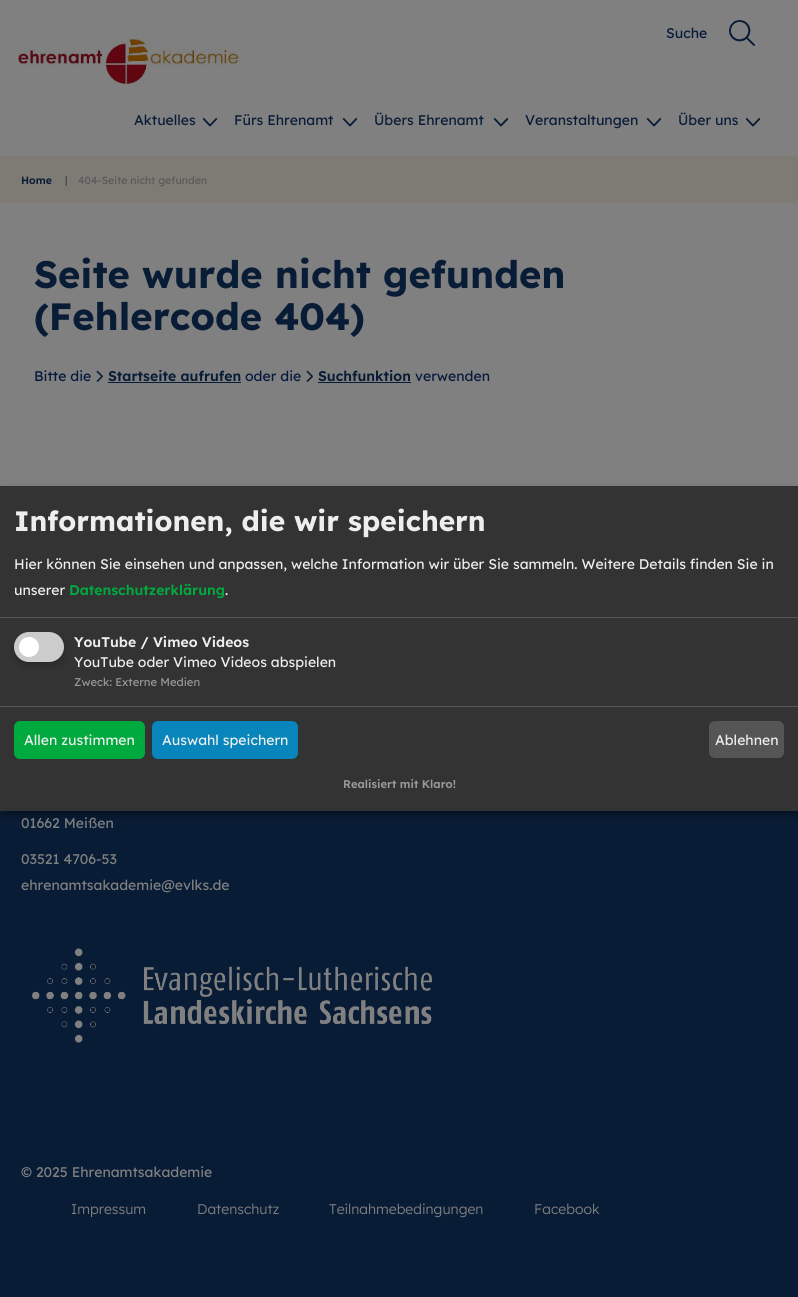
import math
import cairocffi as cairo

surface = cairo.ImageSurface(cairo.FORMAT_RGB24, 798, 1297)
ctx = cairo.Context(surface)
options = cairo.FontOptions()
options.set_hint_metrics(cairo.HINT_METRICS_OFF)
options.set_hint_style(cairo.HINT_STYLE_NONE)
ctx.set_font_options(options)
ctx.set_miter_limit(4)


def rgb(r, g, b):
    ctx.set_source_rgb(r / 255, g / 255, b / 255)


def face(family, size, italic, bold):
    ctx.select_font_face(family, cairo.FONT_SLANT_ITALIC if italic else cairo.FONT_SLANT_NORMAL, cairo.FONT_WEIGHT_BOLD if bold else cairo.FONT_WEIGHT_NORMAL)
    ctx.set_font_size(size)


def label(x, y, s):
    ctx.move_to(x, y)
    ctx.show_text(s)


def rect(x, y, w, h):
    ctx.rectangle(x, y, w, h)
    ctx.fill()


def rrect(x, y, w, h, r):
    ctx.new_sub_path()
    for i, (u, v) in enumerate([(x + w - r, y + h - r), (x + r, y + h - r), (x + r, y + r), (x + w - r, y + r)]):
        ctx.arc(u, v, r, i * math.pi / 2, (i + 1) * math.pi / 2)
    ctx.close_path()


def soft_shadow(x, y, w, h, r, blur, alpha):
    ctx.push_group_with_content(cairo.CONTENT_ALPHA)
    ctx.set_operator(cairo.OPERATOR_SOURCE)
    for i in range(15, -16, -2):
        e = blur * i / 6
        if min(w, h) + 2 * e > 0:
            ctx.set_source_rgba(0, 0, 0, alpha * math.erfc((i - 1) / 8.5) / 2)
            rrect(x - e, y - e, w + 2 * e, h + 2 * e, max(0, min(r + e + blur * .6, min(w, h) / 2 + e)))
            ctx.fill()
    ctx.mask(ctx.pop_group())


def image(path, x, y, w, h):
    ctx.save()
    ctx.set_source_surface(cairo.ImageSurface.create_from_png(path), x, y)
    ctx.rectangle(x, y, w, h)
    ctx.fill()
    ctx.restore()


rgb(128, 128, 128)
ctx.paint()
face('Lexend', 14, 0, 0)
rgb(5, 25, 61)
label(666, 38, 'Suche')
image('image0.png', 729, 20, 26, 26)
image('image1.png', 18, 37, 222, 48)
rgb(9, 28, 54)
label(134, 125, 'Aktuelles')
image('image2.png', 202, 118, 16, 9)
label(234, 125, 'Fürs Ehrenamt')
image('image2.png', 342, 118, 16, 9)
label(374, 125, 'Übers Ehrenamt')
image('image2.png', 493, 118, 16, 9)
label(525, 125, 'Veranstaltungen')
image('image2.png', 646, 118, 16, 9)
label(678, 125, 'Über uns')
image('image2.png', 745, 118, 16, 9)
rgb(126, 123, 117)
rect(0, 156, 798, 47)
face('Lexend SemiBold', 10.5, 0, 0)
rgb(9, 28, 54)
label(21, 184, 'Home')
face('Lexend', 10.5, 0, 0)
rgb(55, 60, 62)
label(65, 184, '|')
rgb(87, 88, 89)
label(78, 184, '404-Seite nicht gefunden')
face('Lexend', 38, 0, 1)
rgb(9, 28, 54)
label(34, 288, 'Seite wurde nicht gefunden')
label(34, 330, '(Fehlercode 404)')
face('Lexend', 14, 0, 0)
rgb(5, 25, 61)
label(34, 381, 'Bitte die')
image('image3.png', 96, 370, 7, 12)
face('Lexend SemiBold', 14, 0, 0)
rgb(9, 28, 54)
label(108, 381, 'Startseite aufrufen')
rect(108, 382, 133, 1)
face('Lexend', 14, 0, 0)
rgb(5, 25, 61)
label(245, 381, 'oder die')
image('image3.png', 306, 370, 7, 12)
face('Lexend SemiBold', 14, 0, 0)
rgb(9, 28, 54)
label(318, 381, 'Suchfunktion')
rect(318, 382, 93, 1)
face('Lexend', 14, 0, 0)
rgb(5, 25, 61)
label(415, 381, 'verwenden')
rgb(9, 28, 54)
rect(0, 811, 798, 486)
rgb(0, 0, 0)
soft_shadow(5, 491, 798, 325, 0, 5, 0.19)
soft_shadow(0, 490, 798, 325, 0, 3, 0.2)
rgb(51, 51, 51)
rect(0, 486, 798, 325)
rgb(85, 85, 85)
rect(0, 617, 798, 1)
face('Lexend', 28, 0, 1)
rgb(238, 238, 238)
label(14, 531, 'Informationen, die wir speichern')
face('Lexend', 14, 0, 0)
label(14, 569, 'Hier können Sie einsehen und anpassen, welche Information wir über Sie sammeln. Weitere Details finden Sie in')
label(14, 595, 'unserer')
face('Lexend SemiBold', 14, 0, 0)
rgb(0, 170, 62)
label(69, 595, 'Datenschutzerklärung')
face('Lexend', 14, 0, 0)
rgb(238, 238, 238)
label(225, 595, '.')
rgb(0, 0, 0)
soft_shadow(14, 636, 50, 30, 15, 3, 0.2)
rgb(204, 204, 204)
rrect(14, 632, 50, 30, 15)
ctx.fill()
rgb(255, 255, 255)
ctx.arc(29, 647, 10, 0, 2 * math.pi)
ctx.fill()
face('Lexend SemiBold', 14, 0, 0)
rgb(238, 238, 238)
label(74, 647, 'YouTube / Vimeo Videos')
face('Lexend', 14, 0, 0)
label(74, 667, 'YouTube oder Vimeo Videos abspielen')
face('Lexend', 11.25, 0, 0)
rgb(153, 153, 153)
label(74, 686, 'Zweck: Externe Medien')
rgb(85, 85, 85)
rect(0, 706, 798, 1)
rgb(0, 170, 62)
rrect(14, 721, 131, 38, 6)
ctx.fill()
face('Lexend', 14, 0, 0)
rgb(238, 238, 238)
label(24, 745, 'Allen zustimmen')
rgb(8, 133, 186)
rrect(152, 721, 146, 38, 6)
ctx.fill()
rgb(238, 238, 238)
label(162, 745, 'Auswahl speichern')
rgb(85, 85, 85)
rrect(709, 721, 75, 37, 6)
ctx.fill()
rgb(238, 238, 238)
label(715, 745, 'Ablehnen')
face('Lexend SemiBold', 11.25, 0, 0)
rgb(153, 153, 153)
label(343, 788, 'Realisiert mit Klaro!')
face('Lexend', 14, 0, 0)
rgb(128, 128, 128)
label(21, 828, '01662 Meißen')
label(21, 864, '03521 4706-53')
label(21, 890, 'ehrenamtsakademie@evlks.de')
image('image4.png', 32, 948, 400, 95)
label(21, 1177, '© 2025 Ehrenamtsakademie')
face('Lexend Light', 14, 0, 0)
label(71, 1214, 'Impressum')
label(197, 1214, 'Datenschutz')
label(329, 1214, 'Teilnahmebedingungen')
label(534, 1214, 'Facebook')
surface.write_to_png('render.png')
